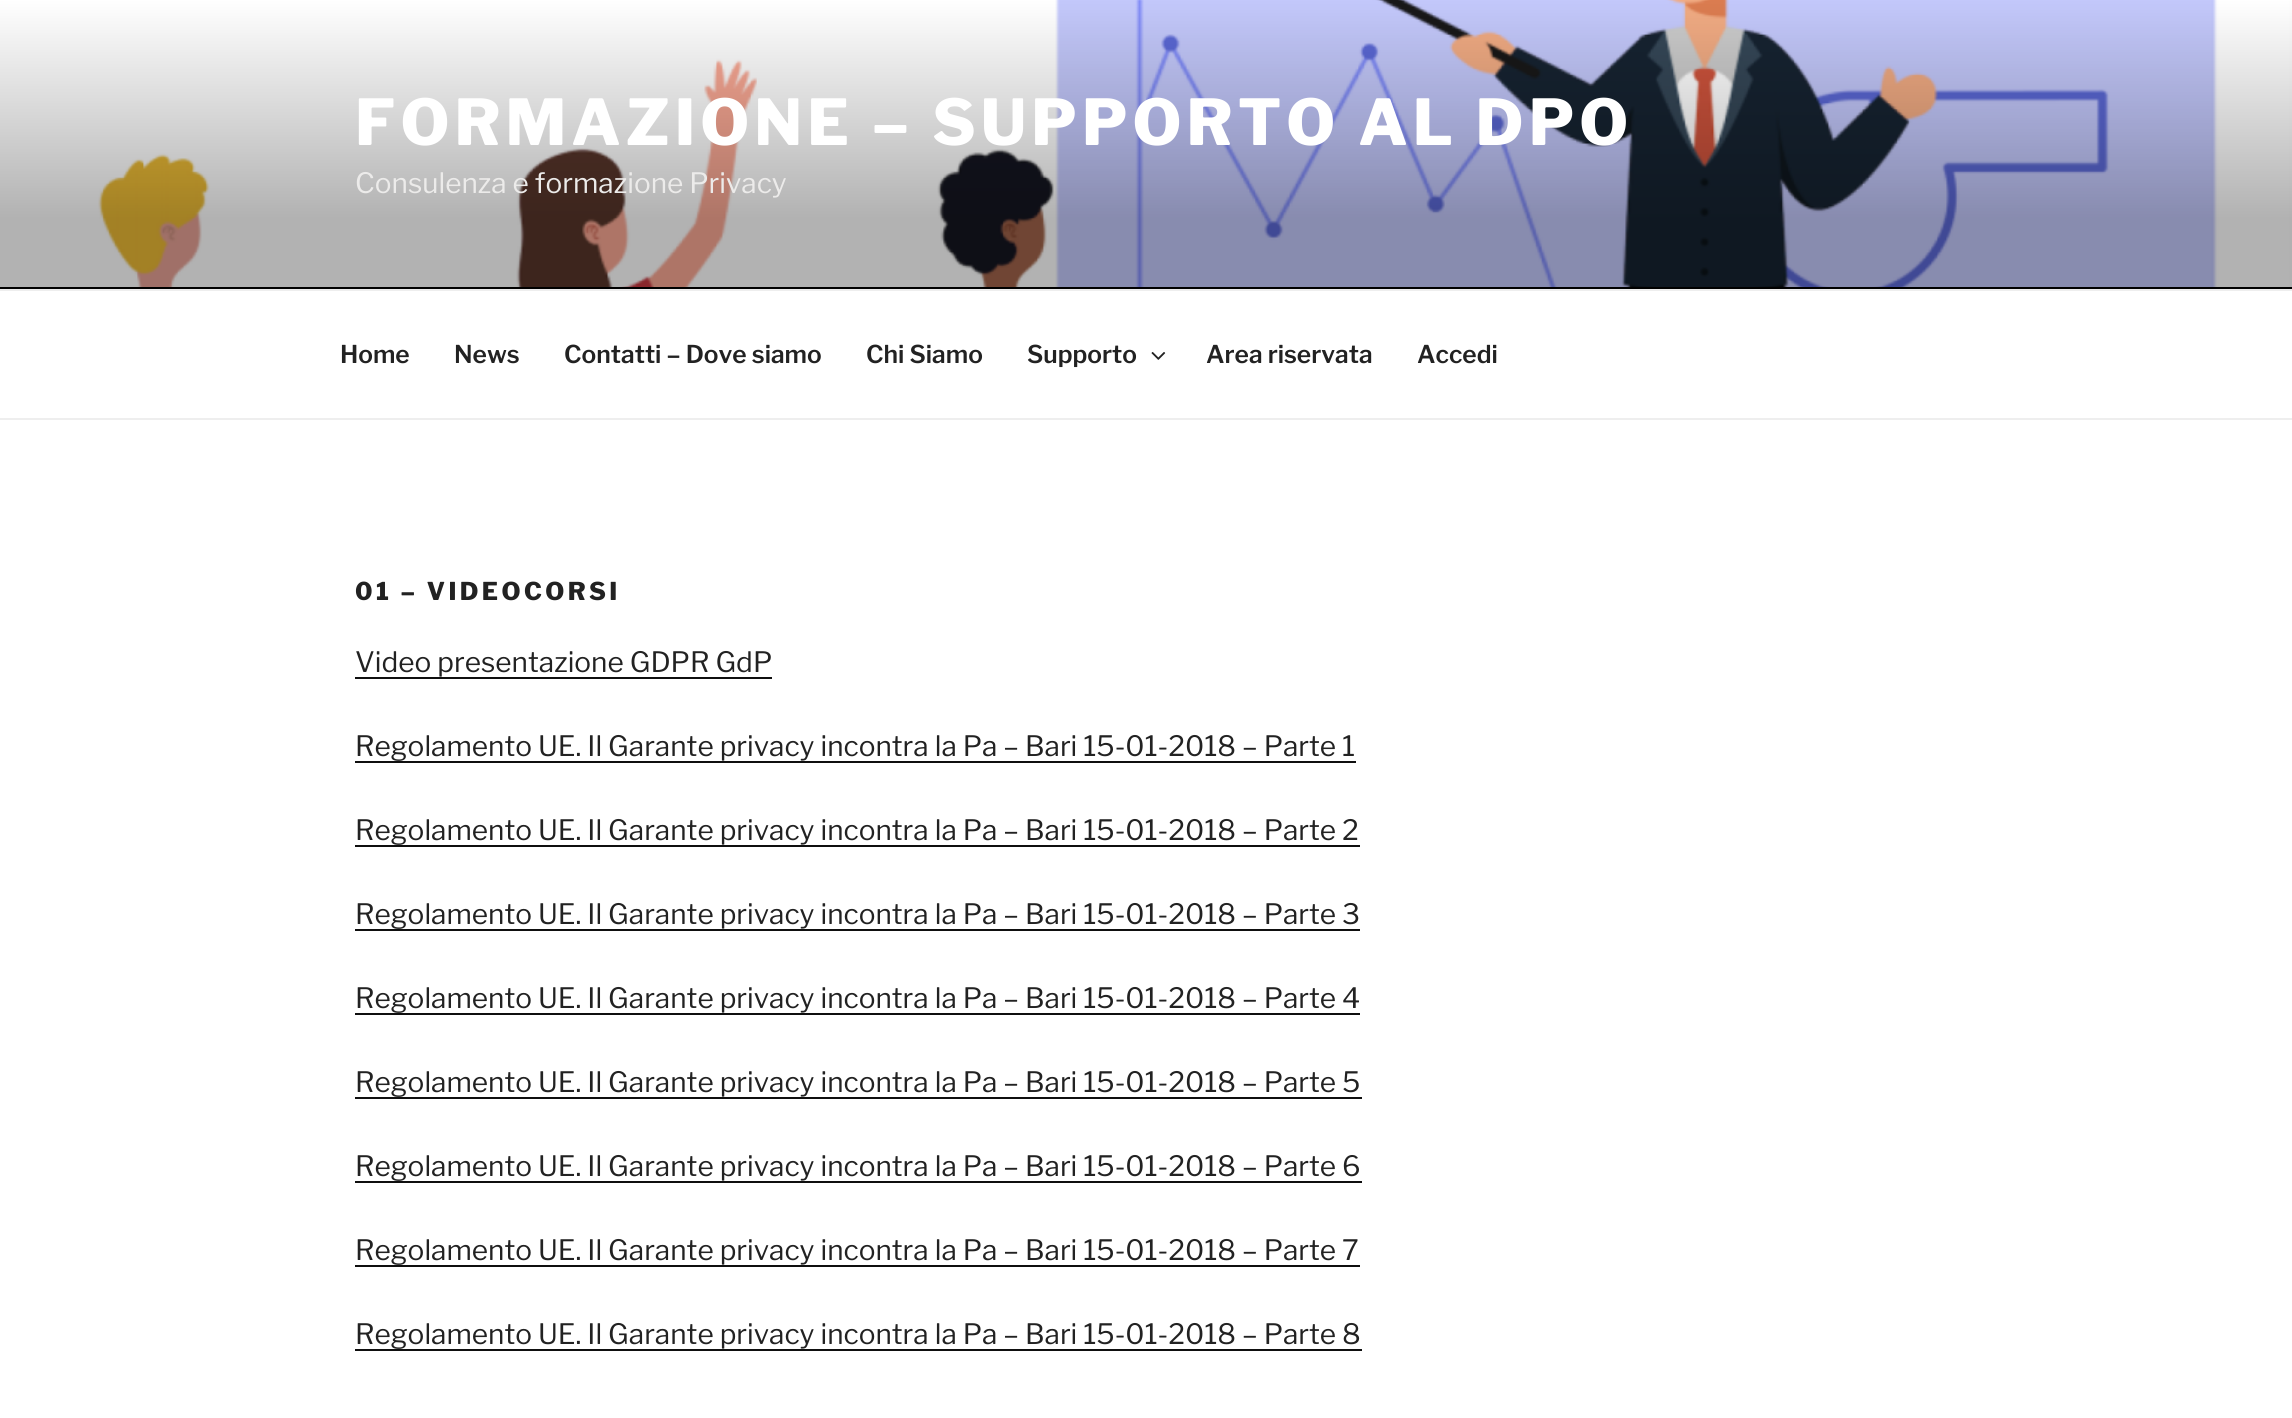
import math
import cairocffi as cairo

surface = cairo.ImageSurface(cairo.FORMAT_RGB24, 2292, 1418)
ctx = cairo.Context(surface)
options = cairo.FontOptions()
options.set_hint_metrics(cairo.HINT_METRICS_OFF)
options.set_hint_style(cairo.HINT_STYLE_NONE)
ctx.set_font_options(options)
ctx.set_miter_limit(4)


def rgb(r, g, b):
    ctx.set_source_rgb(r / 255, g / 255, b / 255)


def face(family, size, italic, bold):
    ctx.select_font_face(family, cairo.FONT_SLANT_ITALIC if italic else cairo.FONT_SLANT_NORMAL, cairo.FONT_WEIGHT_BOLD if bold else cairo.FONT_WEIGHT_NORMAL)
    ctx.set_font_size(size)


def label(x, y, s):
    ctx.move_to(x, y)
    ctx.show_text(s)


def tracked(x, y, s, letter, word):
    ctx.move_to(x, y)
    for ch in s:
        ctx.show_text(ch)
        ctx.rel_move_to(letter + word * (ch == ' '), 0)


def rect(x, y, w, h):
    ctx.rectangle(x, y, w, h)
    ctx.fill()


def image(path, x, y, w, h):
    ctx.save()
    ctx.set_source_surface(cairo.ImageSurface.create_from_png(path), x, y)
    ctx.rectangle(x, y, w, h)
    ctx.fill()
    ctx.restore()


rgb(255, 255, 255)
ctx.paint()
rgb(0, 0, 0)
rect(0, 287, 2292, 2)
image('image0.png', 0, 0, 2292, 287)
face('Libre Franklin ExtraBold', 63, 0, 0)
rgb(255, 255, 255)
tracked(355, 145, 'FORMAZIONE – SUPPORTO AL DPO', 5.05, 0)
face('Libre Franklin Thin', 28, 0, 0)
rgb(236, 235, 234)
label(355, 193, 'Consulenza e formazione Privacy')
rgb(238, 238, 238)
rect(0, 289, 2292, 2)
rect(0, 418, 2292, 2)
face('Libre Franklin SemiBold', 24.5, 0, 0)
rgb(34, 34, 34)
label(340, 363, 'Home')
label(454, 363, 'News')
label(564, 363, 'Contatti – Dove siamo')
label(866, 363, 'Chi Siamo')
label(1027, 363, 'Supporto')
image('image1.png', 1151, 352, 15, 8)
label(1206, 363, 'Area riservata')
label(1417, 363, 'Accedi')
face('Libre Franklin ExtraBold', 24.5, 0, 0)
tracked(355, 600, '01 – VIDEOCORSI', 3.4, 0)
face('Libre Franklin Thin', 28, 0, 0)
label(355, 672, 'Video presentazione GDPR GdP')
rgb(15, 15, 15)
rect(355, 677, 417, 2)
rgb(34, 34, 34)
label(355, 756, 'Regolamento UE. Il Garante privacy incontra la Pa – Bari 15-01-2018 – Parte 1')
rgb(15, 15, 15)
rect(355, 761, 1001, 2)
rgb(34, 34, 34)
label(355, 840, 'Regolamento UE. Il Garante privacy incontra la Pa – Bari 15-01-2018 – Parte 2')
rgb(15, 15, 15)
rect(355, 845, 1005, 2)
rgb(34, 34, 34)
label(355, 924, 'Regolamento UE. Il Garante privacy incontra la Pa – Bari 15-01-2018 – Parte 3')
rgb(15, 15, 15)
rect(355, 929, 1005, 2)
rgb(34, 34, 34)
label(355, 1008, 'Regolamento UE. Il Garante privacy incontra la Pa – Bari 15-01-2018 – Parte 4')
rgb(15, 15, 15)
rect(355, 1013, 1005, 2)
rgb(34, 34, 34)
label(355, 1092, 'Regolamento UE. Il Garante privacy incontra la Pa – Bari 15-01-2018 – Parte 5')
rgb(15, 15, 15)
rect(355, 1097, 1007, 2)
rgb(34, 34, 34)
label(355, 1176, 'Regolamento UE. Il Garante privacy incontra la Pa – Bari 15-01-2018 – Parte 6')
rgb(15, 15, 15)
rect(355, 1181, 1007, 2)
rgb(34, 34, 34)
label(355, 1260, 'Regolamento UE. Il Garante privacy incontra la Pa – Bari 15-01-2018 – Parte 7')
rgb(15, 15, 15)
rect(355, 1265, 1005, 2)
rgb(34, 34, 34)
label(355, 1344, 'Regolamento UE. Il Garante privacy incontra la Pa – Bari 15-01-2018 – Parte 8')
rgb(15, 15, 15)
rect(355, 1349, 1007, 2)
surface.write_to_png('render.png')
